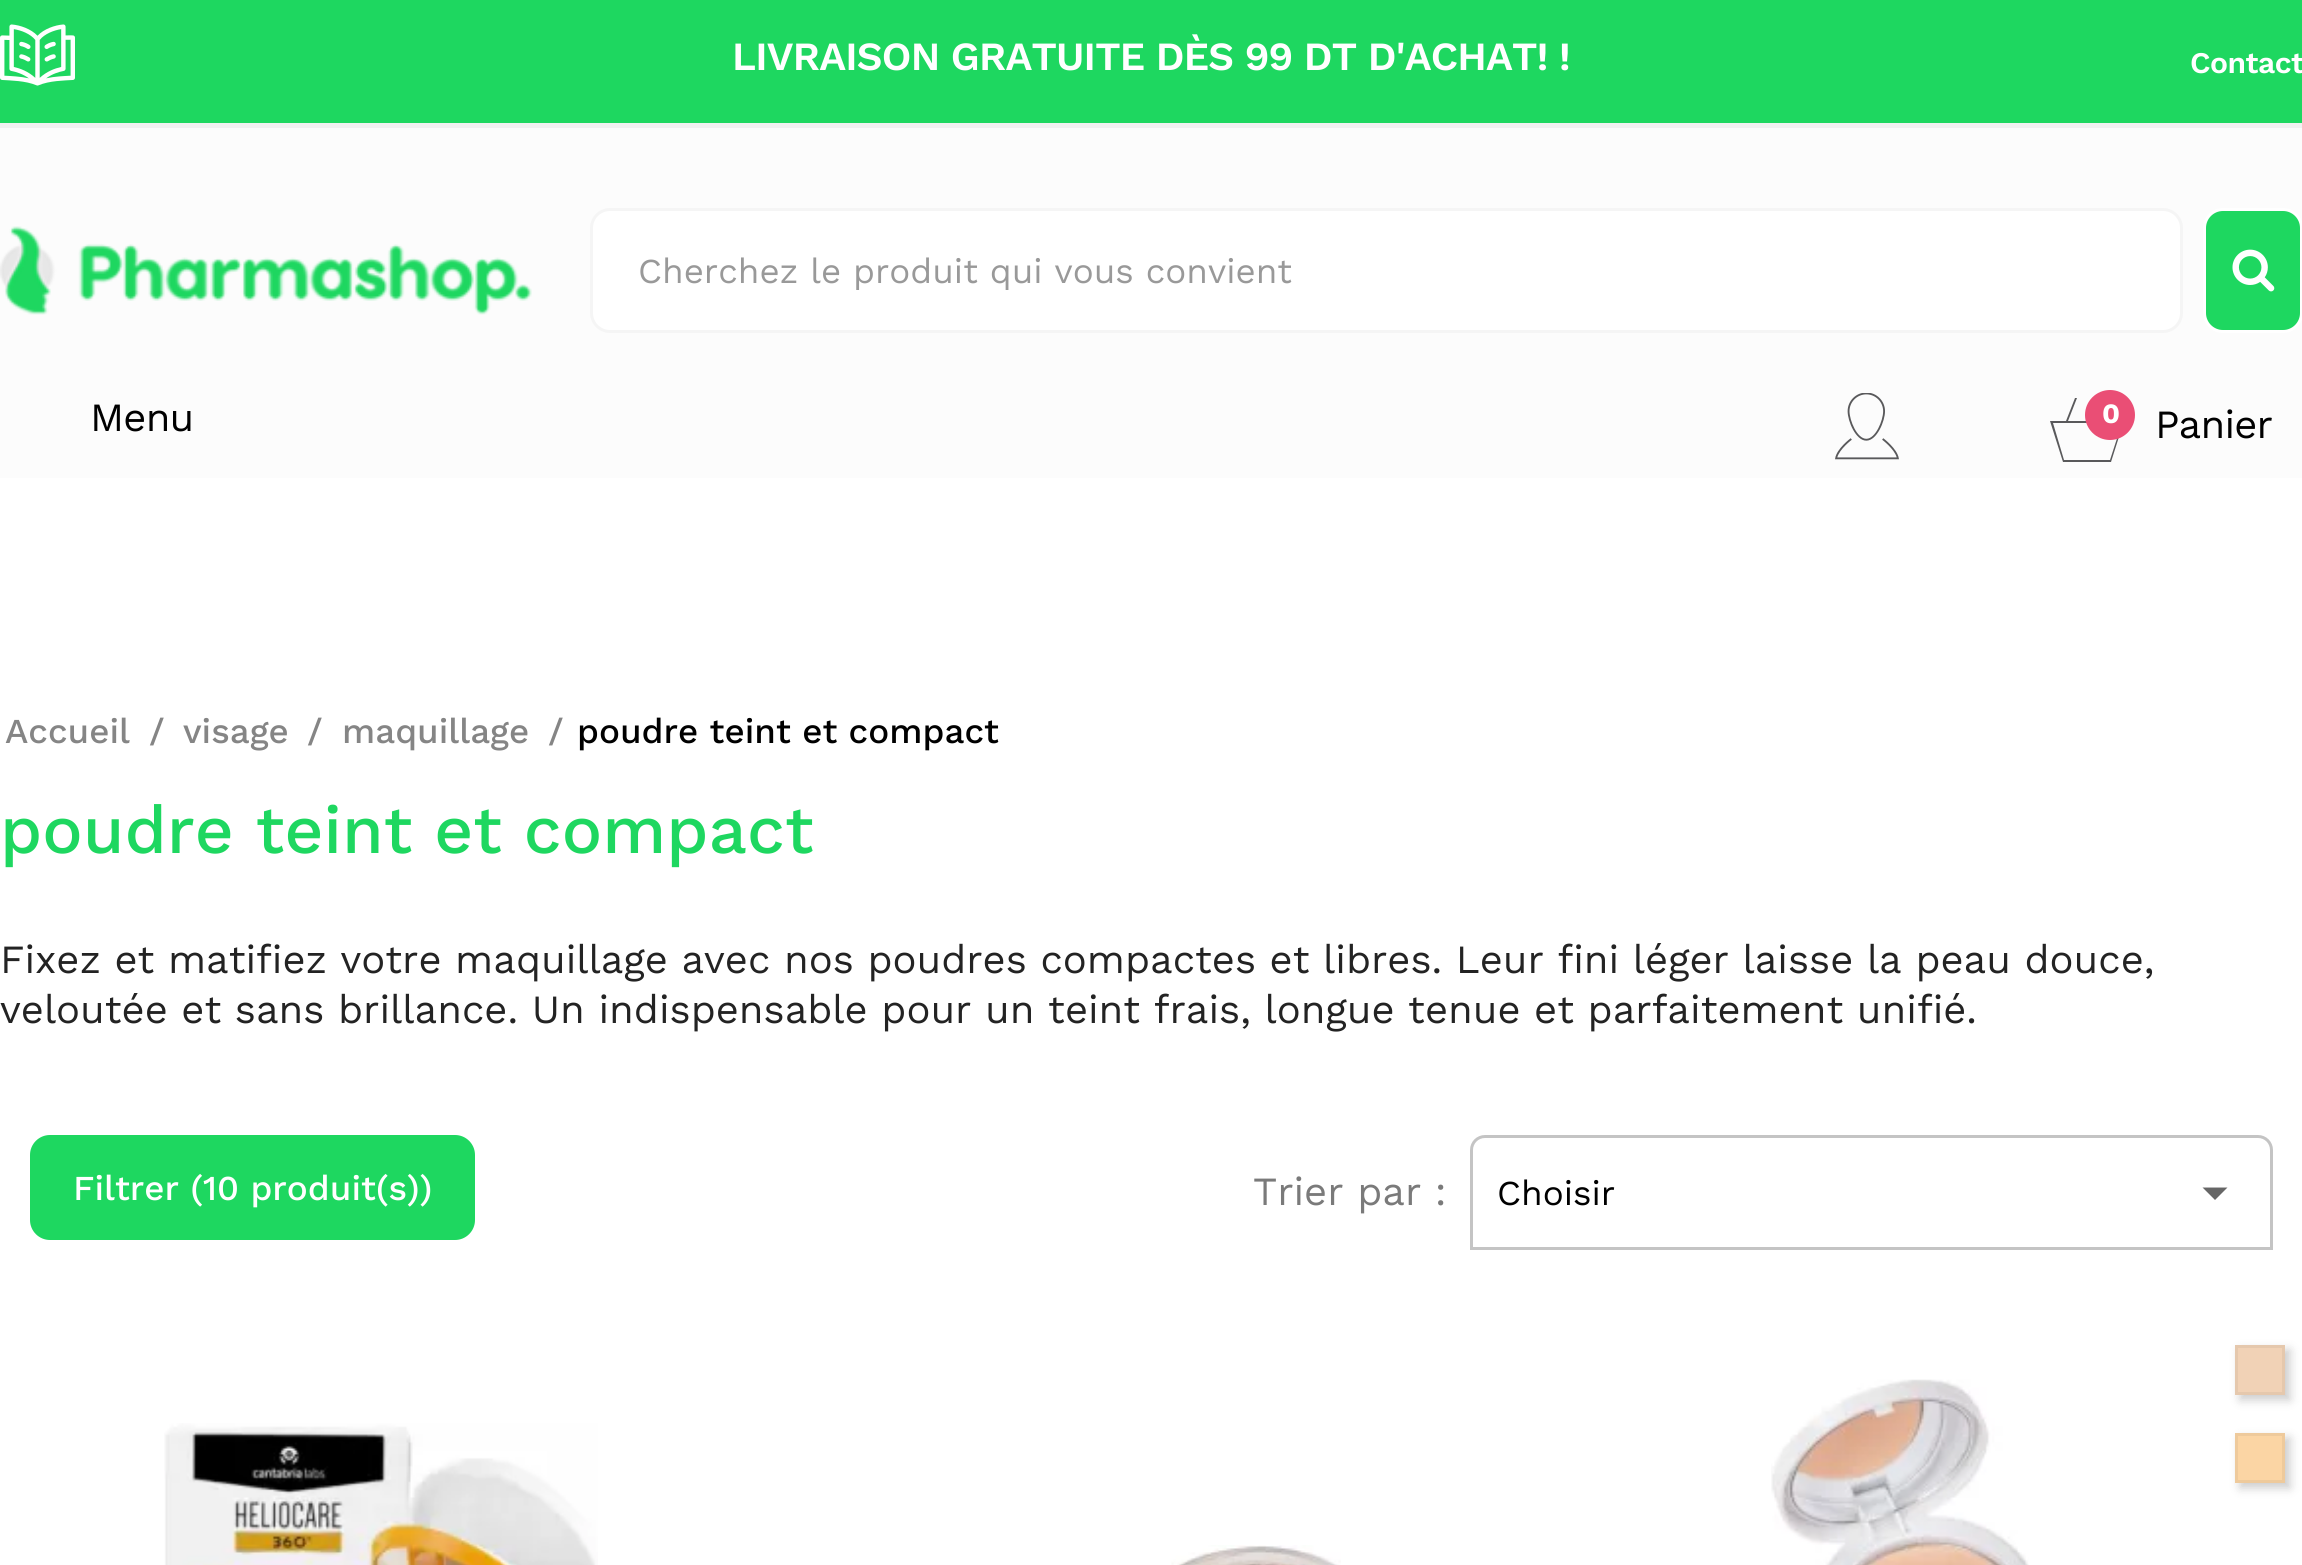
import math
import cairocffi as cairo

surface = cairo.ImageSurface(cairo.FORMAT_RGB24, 2302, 1565)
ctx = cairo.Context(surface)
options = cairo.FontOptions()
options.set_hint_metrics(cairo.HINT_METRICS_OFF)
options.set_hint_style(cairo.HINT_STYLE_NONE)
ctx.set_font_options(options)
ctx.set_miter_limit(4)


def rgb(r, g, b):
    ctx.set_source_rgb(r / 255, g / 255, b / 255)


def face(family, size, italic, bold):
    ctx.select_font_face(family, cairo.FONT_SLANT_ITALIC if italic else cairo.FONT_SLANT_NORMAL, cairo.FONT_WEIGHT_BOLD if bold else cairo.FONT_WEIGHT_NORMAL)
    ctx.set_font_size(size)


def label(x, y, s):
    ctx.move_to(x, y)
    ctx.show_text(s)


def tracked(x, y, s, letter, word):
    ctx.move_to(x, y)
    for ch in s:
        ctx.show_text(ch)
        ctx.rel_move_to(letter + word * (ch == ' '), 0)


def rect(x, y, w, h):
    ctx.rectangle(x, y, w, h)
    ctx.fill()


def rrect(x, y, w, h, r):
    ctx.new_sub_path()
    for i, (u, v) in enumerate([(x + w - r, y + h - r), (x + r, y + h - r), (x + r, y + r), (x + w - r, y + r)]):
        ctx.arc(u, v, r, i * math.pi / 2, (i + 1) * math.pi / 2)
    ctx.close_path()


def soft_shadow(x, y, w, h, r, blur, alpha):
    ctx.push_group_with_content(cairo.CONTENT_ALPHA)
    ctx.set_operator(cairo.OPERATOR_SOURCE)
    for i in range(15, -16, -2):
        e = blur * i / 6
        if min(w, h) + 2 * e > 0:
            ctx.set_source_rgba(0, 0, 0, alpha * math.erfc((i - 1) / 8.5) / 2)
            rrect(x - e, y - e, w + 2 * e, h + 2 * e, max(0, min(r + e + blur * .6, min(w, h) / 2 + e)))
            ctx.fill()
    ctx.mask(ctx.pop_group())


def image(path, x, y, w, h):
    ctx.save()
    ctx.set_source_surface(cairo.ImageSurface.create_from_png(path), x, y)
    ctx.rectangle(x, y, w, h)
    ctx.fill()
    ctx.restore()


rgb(255, 255, 255)
ctx.paint()
rgb(30, 215, 96)
rect(0, 0, 2302, 123)
rgb(241, 241, 241)
rect(0, 123, 2302, 5)
image('image0.png', 0, 24, 75, 62)
face('Work Sans SemiBold', 40, 0, 0)
rgb(255, 255, 255)
tracked(732, 70, 'LIVRAISON GRATUITE DÈS 99 DT D\'ACHAT! !', -0.8, 0)
face('Work Sans SemiBold', 30, 0, 0)
tracked(2190, 73, 'Contact', -0.5, 0)
rgb(252, 252, 252)
rect(0, 128, 2302, 350)
face('Work Sans', 40, 0, 0)
rgb(0, 0, 0)
tracked(90, 431, 'Menu', -0.8, 0)
image('image1.png', 0, 226, 532, 89)
rgb(255, 255, 255)
rrect(591.5, 209.5, 1590, 122, 18.5)
ctx.fill_preserve()
rgb(245, 245, 245)
ctx.set_line_width(3)
ctx.stroke()
ctx.save()
ctx.rectangle(638, 250, 1497, 40)
ctx.clip()
face('Work Sans', 35, 0, 0)
rgb(153, 153, 153)
label(638, 283, 'Cherchez le produit qui vous convient')
ctx.restore()
rgb(30, 215, 96)
rrect(2204.5, 209.5, 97, 122, 18.5)
ctx.fill_preserve()
rgb(255, 255, 255)
ctx.stroke()
image('image2.png', 2232, 249, 43, 43)
image('image3.png', 1835, 393, 64, 67)
rgb(89, 89, 91)
ctx.new_path()
ctx.move_to(2110, 421)
ctx.line_to(2099, 398)
ctx.line_to(2098, 398)
ctx.line_to(2108, 421)
ctx.line_to(2068, 421)
ctx.line_to(2077, 398)
ctx.line_to(2075, 398)
ctx.line_to(2066, 421)
ctx.line_to(2050, 421)
ctx.line_to(2063, 462)
ctx.line_to(2111, 462)
ctx.line_to(2124, 421)
ctx.close_path()
ctx.move_to(2110, 460)
ctx.line_to(2064, 460)
ctx.line_to(2053, 423)
ctx.line_to(2122, 423)
ctx.close_path()
ctx.fill()
rgb(234, 78, 117)
ctx.arc(2110, 415, 25, 0, 2 * math.pi)
ctx.fill()
face('Work Sans', 28, 0, 1)
rgb(255, 255, 255)
tracked(2102, 423, '0', -0.8, 0)
face('Work Sans', 40, 0, 0)
rgb(0, 0, 0)
tracked(2155, 438, 'Panier', -0.8, 0)
face('Work Sans Medium', 35, 0, 0)
rgb(133, 133, 133)
label(5, 743, 'Accueil')
label(149, 743, '/')
label(183, 743, 'visage')
label(307, 743, '/')
label(342, 743, 'maquillage')
label(548, 743, '/')
rgb(0, 0, 0)
label(577, 743, 'poudre teint et compact')
face('Work Sans Medium', 67.5, 0, 0)
rgb(30, 215, 96)
label(0, 853, 'poudre teint et compact')
face('Work Sans', 40, 0, 0)
rgb(35, 35, 35)
label(0, 973, 'Fixez et matifiez votre maquillage avec nos poudres compactes et libres. Leur fini léger laisse la peau douce,')
label(0, 1023, 'veloutée et sans brillance. Un indispensable pour un teint frais, longue tenue et parfaitement unifié.')
rgb(30, 215, 96)
rrect(30, 1135, 445, 105, 20)
ctx.fill()
face('Work Sans Medium', 35, 0, 0)
rgb(255, 255, 255)
label(73, 1200, 'Filtrer (10 produit(s))')
face('Work Sans', 40, 0, 0)
rgb(122, 122, 122)
label(1253, 1205, 'Trier par :')
ctx.new_path()
ctx.move_to(1485, 1136.5)
ctx.line_to(2258, 1136.5)
ctx.curve_to(2265.5, 1136.5, 2271.5, 1142.5, 2271.5, 1150)
ctx.line_to(2271.5, 1248.5)
ctx.line_to(1471.5, 1248.5)
ctx.line_to(1471.5, 1150)
ctx.curve_to(1471.5, 1142.5, 1477.5, 1136.5, 1485, 1136.5)
ctx.close_path()
rgb(196, 196, 196)
ctx.stroke()
face('Work Sans', 35, 0, 0)
rgb(0, 0, 0)
label(1497, 1205, 'Choisir')
rgb(102, 102, 102)
ctx.new_path()
ctx.move_to(2202.5, 1187.5)
ctx.line_to(2227.5, 1187.5)
ctx.line_to(2215, 1200)
ctx.close_path()
ctx.fill()
image('image4.png', 164, 1423, 434, 142)
image('image5.png', 1171, 1545, 170, 20)
image('image6.png', 1771, 1379, 258, 186)
rgb(0, 0, 0)
soft_shadow(2240, 1350, 50, 50, 0, 5, 0.2)
rgb(241, 210, 182)
ctx.rectangle(2236.5, 1346.5, 47, 47)
ctx.fill_preserve()
rgb(229, 200, 173)
ctx.stroke()
rgb(0, 0, 0)
soft_shadow(2240, 1438, 50, 50, 0, 5, 0.2)
rgb(251, 213, 164)
ctx.rectangle(2236.5, 1434.5, 47, 47)
ctx.fill_preserve()
rgb(238, 202, 156)
ctx.stroke()
surface.write_to_png('render.png')
